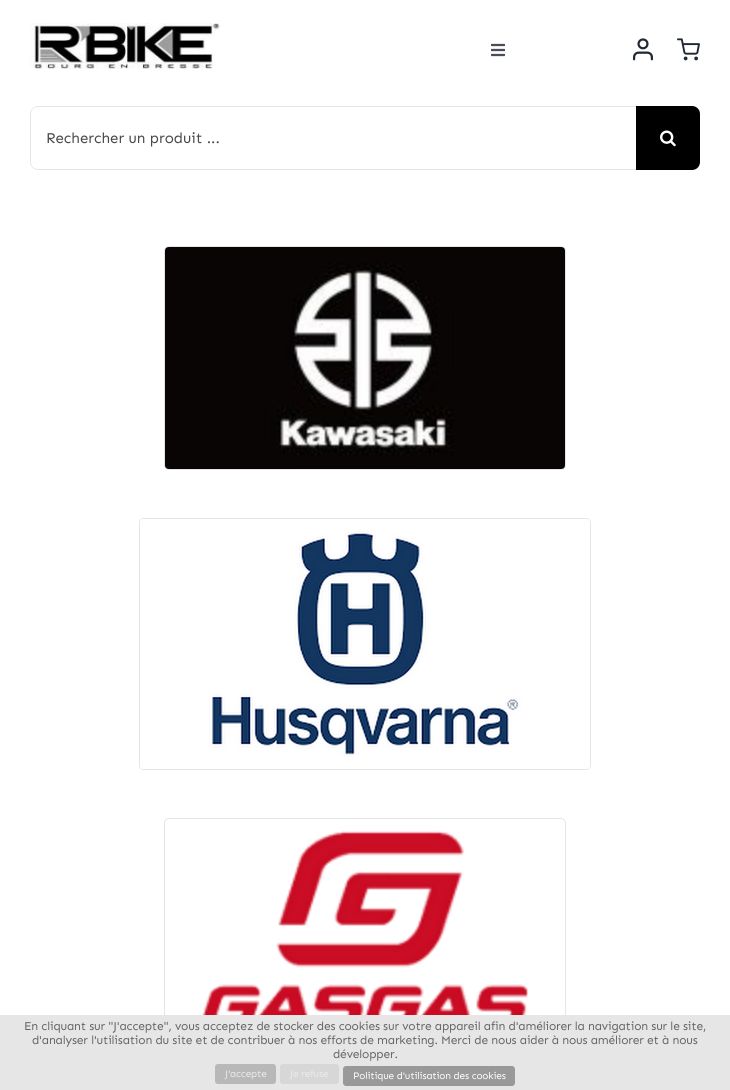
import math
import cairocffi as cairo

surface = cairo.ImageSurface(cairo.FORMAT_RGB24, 730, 1090)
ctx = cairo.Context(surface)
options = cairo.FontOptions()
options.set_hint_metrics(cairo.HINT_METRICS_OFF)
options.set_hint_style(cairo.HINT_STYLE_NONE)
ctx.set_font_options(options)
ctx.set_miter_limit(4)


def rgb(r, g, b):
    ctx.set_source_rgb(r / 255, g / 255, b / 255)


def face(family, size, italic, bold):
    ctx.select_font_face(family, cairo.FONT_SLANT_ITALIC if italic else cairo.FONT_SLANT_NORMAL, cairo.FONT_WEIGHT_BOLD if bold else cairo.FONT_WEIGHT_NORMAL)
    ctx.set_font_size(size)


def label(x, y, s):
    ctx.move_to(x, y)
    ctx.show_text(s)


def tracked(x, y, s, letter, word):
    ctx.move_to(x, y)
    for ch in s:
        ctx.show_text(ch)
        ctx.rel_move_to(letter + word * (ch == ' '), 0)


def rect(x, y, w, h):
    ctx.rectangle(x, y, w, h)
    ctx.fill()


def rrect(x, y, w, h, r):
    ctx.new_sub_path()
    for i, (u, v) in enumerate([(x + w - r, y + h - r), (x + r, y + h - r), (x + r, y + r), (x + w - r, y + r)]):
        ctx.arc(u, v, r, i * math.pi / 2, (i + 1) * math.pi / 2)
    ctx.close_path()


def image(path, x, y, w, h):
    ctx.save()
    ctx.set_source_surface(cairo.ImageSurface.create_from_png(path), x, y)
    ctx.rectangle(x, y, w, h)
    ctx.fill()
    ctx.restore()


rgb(255, 255, 255)
ctx.paint()
image('image0.png', 30, 23, 190, 46)
image('image1.png', 491, 43, 14, 14)
image('image2.png', 633, 38, 20, 23)
image('image3.png', 677, 38, 23, 23)
rgb(229, 229, 229)
ctx.set_fill_rule(cairo.FILL_RULE_EVEN_ODD)
ctx.new_path()
ctx.move_to(38, 106)
ctx.line_to(636, 106)
ctx.line_to(636, 170)
ctx.line_to(38, 170)
ctx.curve_to(34, 170, 30, 166, 30, 162)
ctx.line_to(30, 114)
ctx.curve_to(30, 110, 34, 106, 38, 106)
ctx.close_path()
ctx.move_to(38, 107)
ctx.line_to(636, 107)
ctx.line_to(636, 169)
ctx.line_to(38, 169)
ctx.curve_to(34, 169, 31, 166, 31, 162)
ctx.line_to(31, 114)
ctx.curve_to(31, 110, 34, 107, 38, 107)
ctx.close_path()
ctx.fill()
face('Sen', 15, 0, 0)
rgb(73, 73, 73)
label(46, 143, 'Rechercher un produit ...')
rgb(0, 0, 0)
ctx.new_path()
ctx.move_to(636, 106)
ctx.line_to(692, 106)
ctx.curve_to(696.5, 106, 700, 109.5, 700, 114)
ctx.line_to(700, 162)
ctx.curve_to(700, 166.5, 696.5, 170, 692, 170)
ctx.line_to(636, 170)
ctx.close_path()
ctx.fill()
image('image4.png', 660, 130, 16, 17)
rrect(164.5, 246.5, 401, 223, 4.5)
rgb(229, 229, 229)
ctx.set_line_width(1)
ctx.stroke()
image('image5.png', 165, 247, 400, 222)
rrect(139.5, 518.5, 451, 251, 4.5)
ctx.stroke()
image('image6.png', 140, 519, 450, 250)
rrect(164.5, 818.5, 401, 223, 4.5)
ctx.stroke()
image('image7.png', 202, 830, 326, 185)
rgb(230, 230, 230)
rect(0, 1015, 730, 75)
face('Sen', 12, 0, 0)
rgb(102, 102, 102)
tracked(24, 1030, 'En cliquant sur "J\'accepte", vous acceptez de stocker des cookies sur votre appareil afin d\'améliorer la navigation sur le site,', -0.17, 0)
tracked(32, 1044, 'd\'analyser l\'utilisation du site et de contribuer à nos efforts de marketing. Merci de nous aider à nous améliorer et à nous', -0.17, 0)
tracked(333, 1058, 'développer.', -0.17, 0)
rgb(184, 184, 184)
rrect(215, 1064, 61, 20, 3)
ctx.fill()
face('Sen', 10, 0, 0)
rgb(235, 235, 235)
tracked(225, 1077, 'J\'accepte', -0.17, 0)
rgb(215, 215, 215)
rrect(280, 1064, 59, 20, 3)
ctx.fill()
rgb(235, 235, 235)
tracked(290, 1077, 'Je refuse', -0.17, 0)
rgb(153, 153, 153)
rrect(343, 1066, 172, 20, 3)
ctx.fill()
rgb(255, 255, 255)
tracked(353, 1079, 'Politique d\'utilisation des cookies', -0.17, 0)
surface.write_to_png('render.png')
